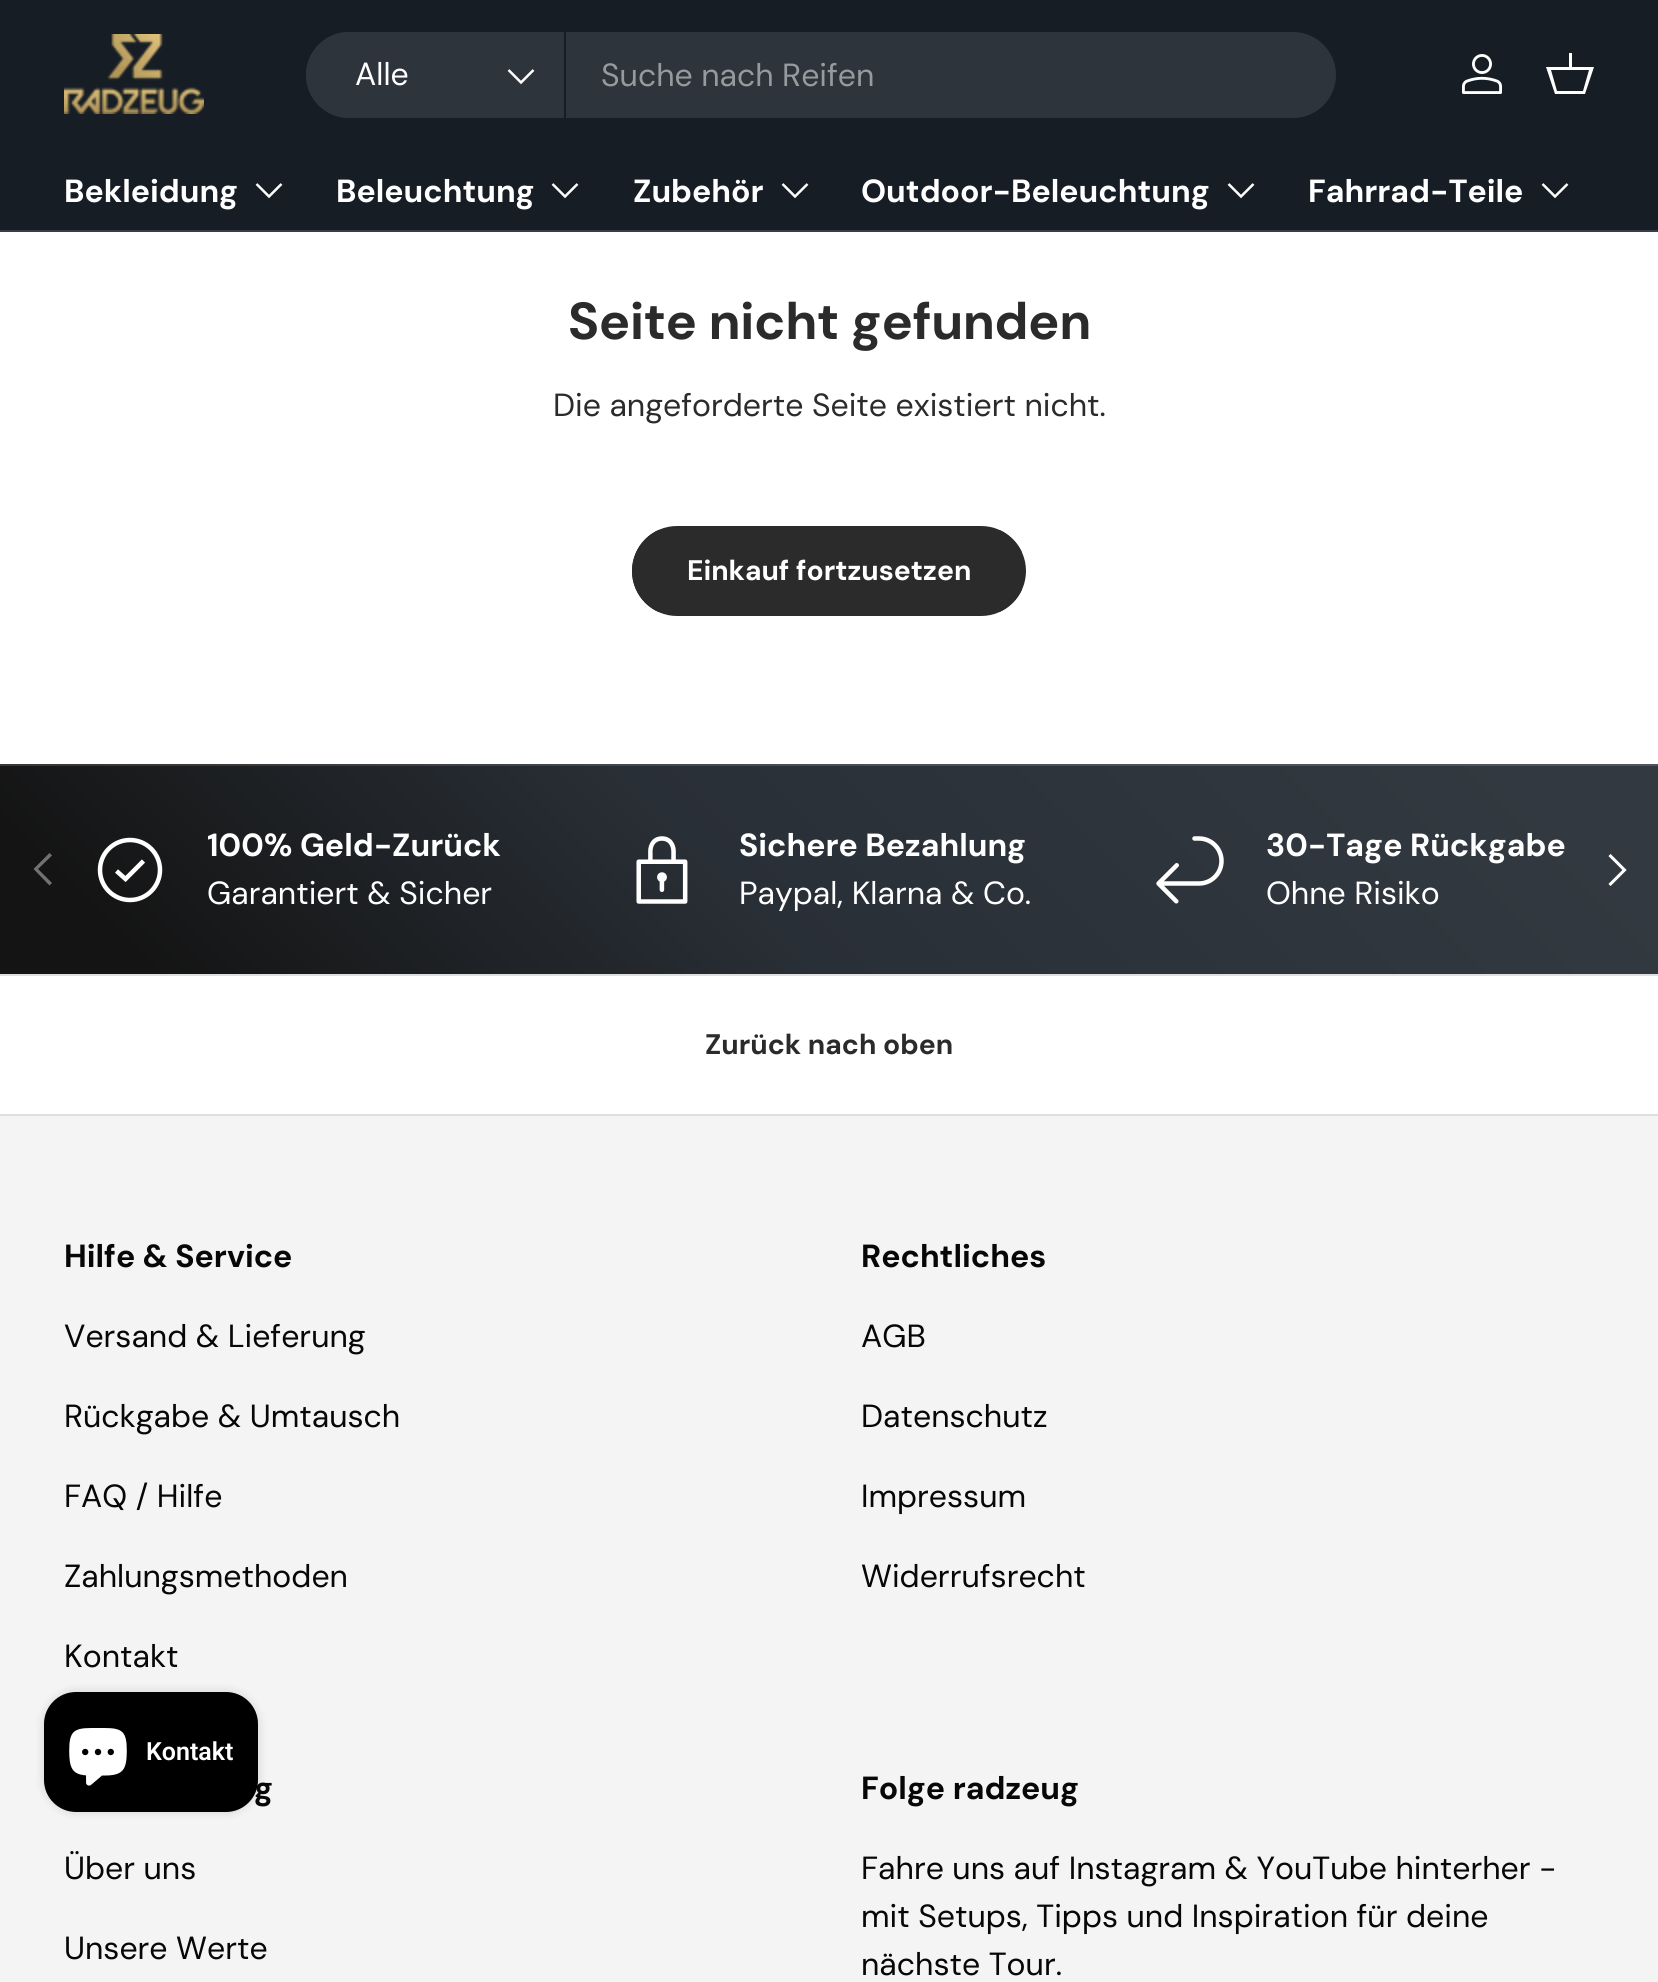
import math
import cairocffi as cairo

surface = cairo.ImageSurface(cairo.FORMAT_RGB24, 1658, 1982)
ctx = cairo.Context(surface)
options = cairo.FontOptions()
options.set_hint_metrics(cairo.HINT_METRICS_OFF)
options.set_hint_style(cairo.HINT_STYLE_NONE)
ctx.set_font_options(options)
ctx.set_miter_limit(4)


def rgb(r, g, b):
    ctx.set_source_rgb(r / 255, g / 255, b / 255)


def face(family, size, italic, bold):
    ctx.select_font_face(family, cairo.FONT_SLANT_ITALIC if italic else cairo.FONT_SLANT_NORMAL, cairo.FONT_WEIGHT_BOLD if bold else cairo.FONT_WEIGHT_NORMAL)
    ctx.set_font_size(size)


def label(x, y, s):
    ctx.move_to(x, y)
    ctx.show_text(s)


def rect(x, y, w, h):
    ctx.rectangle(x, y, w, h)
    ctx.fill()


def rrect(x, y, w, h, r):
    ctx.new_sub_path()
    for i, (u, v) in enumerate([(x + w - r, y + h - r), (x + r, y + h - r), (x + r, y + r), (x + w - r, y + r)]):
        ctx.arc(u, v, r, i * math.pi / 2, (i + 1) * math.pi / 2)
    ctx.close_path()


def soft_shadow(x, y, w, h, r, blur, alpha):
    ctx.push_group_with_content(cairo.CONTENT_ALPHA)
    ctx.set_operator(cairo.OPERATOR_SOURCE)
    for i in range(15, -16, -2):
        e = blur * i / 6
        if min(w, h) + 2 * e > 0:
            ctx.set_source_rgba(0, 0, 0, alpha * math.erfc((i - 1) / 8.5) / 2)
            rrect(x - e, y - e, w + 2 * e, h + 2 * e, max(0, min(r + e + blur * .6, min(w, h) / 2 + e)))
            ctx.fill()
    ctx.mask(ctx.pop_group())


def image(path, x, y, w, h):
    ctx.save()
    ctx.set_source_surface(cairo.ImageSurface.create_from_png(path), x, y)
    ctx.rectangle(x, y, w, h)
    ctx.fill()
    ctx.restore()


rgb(255, 255, 255)
ctx.paint()
rgb(22, 29, 37)
rect(0, 0, 1658, 230)
rgb(57, 63, 70)
rect(0, 230, 1658, 2)
image('image0.png', 64, 34, 140, 80)
rgb(45, 52, 59)
rrect(306, 32, 1030, 86, 43)
ctx.fill()
ctx.new_path()
ctx.move_to(349, 32)
ctx.line_to(566, 32)
ctx.line_to(566, 118)
ctx.line_to(349, 118)
ctx.curve_to(325.5, 118, 306, 98.5, 306, 75)
ctx.curve_to(306, 51.5, 325.5, 32, 349, 32)
ctx.close_path()
ctx.fill()
rgb(22, 29, 37)
rect(564, 32, 2, 86)
face('DM Sans', 32, 0, 0)
rgb(255, 255, 255)
label(355, 85, 'Alle')
ctx.new_path()
ctx.move_to(533.5, 70)
ctx.line_to(521, 82.5)
ctx.line_to(508.5, 70)
ctx.set_line_width(2.5)
ctx.stroke()
rgb(150, 154, 157)
label(601, 86, 'Suche nach Reifen')
image('image1.png', 1462, 54, 40, 40)
rgb(255, 255, 255)
ctx.new_path()
ctx.move_to(1569, 67)
ctx.line_to(1569, 53)
ctx.line_to(1572, 53)
ctx.line_to(1572, 67)
ctx.line_to(1594, 67)
ctx.line_to(1585, 94)
ctx.line_to(1555, 94)
ctx.line_to(1546, 67)
ctx.close_path()
ctx.move_to(1551, 70)
ctx.line_to(1557, 91)
ctx.line_to(1583, 91)
ctx.line_to(1589, 70)
ctx.close_path()
ctx.fill()
face('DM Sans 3', 32, 0, 1)
label(64, 202, 'Bekleidung')
ctx.new_path()
ctx.move_to(281.5, 184)
ctx.line_to(269, 196.5)
ctx.line_to(256.5, 184)
ctx.stroke()
label(336, 202, 'Beleuchtung')
ctx.new_path()
ctx.move_to(577.5, 184)
ctx.line_to(565, 196.5)
ctx.line_to(552.5, 184)
ctx.stroke()
label(633, 202, 'Zubehör')
ctx.new_path()
ctx.move_to(807.5, 184)
ctx.line_to(795, 196.5)
ctx.line_to(782.5, 184)
ctx.stroke()
label(861, 202, 'Outdoor-Beleuchtung')
ctx.new_path()
ctx.move_to(1253.5, 184)
ctx.line_to(1241, 196.5)
ctx.line_to(1228.5, 184)
ctx.stroke()
label(1308, 202, 'Fahrrad-Teile')
ctx.new_path()
ctx.move_to(1567.5, 184)
ctx.line_to(1555, 196.5)
ctx.line_to(1542.5, 184)
ctx.stroke()
face('DM Sans', 52, 0, 1)
rgb(42, 43, 42)
label(568, 339, 'Seite nicht gefunden')
face('DM Sans', 32, 0, 0)
label(553, 416, 'Die angeforderte Seite existiert nicht.')
ctx.save()
rrect(632, 526, 394, 90, 45)
ctx.clip()
gradient = cairo.LinearGradient(-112, 433, 998, 709)
gradient.add_color_stop_rgba(0.6, 0.322, 0.325, 0.322, 1)
gradient.add_color_stop_rgba(0.6, 0.165, 0.169, 0.165, 1)
gradient.add_color_stop_rgba(1, 0.165, 0.169, 0.165, 1)
ctx.set_source(gradient)
rect(632, 530, 390, 82)
ctx.restore()
rrect(634, 528, 390, 86, 43)
ctx.set_line_width(4)
ctx.stroke()
face('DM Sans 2', 28.25, 0, 1)
rgb(255, 255, 255)
label(687, 580, 'Einkauf fortzusetzen')
gradient = cairo.LinearGradient(1296, 195, 363, 1129)
gradient.add_color_stop_rgba(0.08, 0.318, 0.341, 0.365, 1)
gradient.add_color_stop_rgba(0.56, 0.286, 0.306, 0.329, 1)
gradient.add_color_stop_rgba(0.92, 0.216, 0.216, 0.216, 1)
ctx.set_source(gradient)
rect(0, 764, 1658, 2)
gradient = cairo.LinearGradient(1296, 403, 363, 1337)
gradient.add_color_stop_rgba(0.08, 0.196, 0.224, 0.251, 1)
gradient.add_color_stop_rgba(0.56, 0.161, 0.184, 0.212, 1)
gradient.add_color_stop_rgba(0.92, 0.078, 0.078, 0.078, 1)
ctx.set_source(gradient)
rect(0, 766, 1658, 208)
ctx.new_path()
ctx.arc(130, 870, 30, 0, 2 * math.pi)
rgb(255, 255, 255)
ctx.set_line_width(4.5)
ctx.stroke()
ctx.new_path()
ctx.move_to(143.5, 861)
ctx.line_to(125.5, 879)
ctx.line_to(116.5, 871)
ctx.stroke()
face('DM Sans 3', 32, 0, 1)
label(207, 856, '100% Geld-Zurück')
face('DM Sans', 32, 0, 0)
label(207, 904, 'Garantiert & Sicher')
image('image2.png', 636, 836, 52, 68)
face('DM Sans 3', 32, 0, 1)
label(739, 856, 'Sichere Bezahlung')
face('DM Sans', 32, 0, 0)
label(739, 904, 'Paypal, Klarna & Co.')
image('image3.png', 1156, 836, 68, 68)
face('DM Sans 3', 32, 0, 1)
label(1266, 856, '30-Tage Rückgabe')
face('DM Sans', 32, 0, 0)
label(1266, 904, 'Ohne Risiko')
rgb(114, 114, 114)
ctx.new_path()
ctx.move_to(33.5, 869)
ctx.line_to(49.5, 853)
ctx.line_to(52, 855.5)
ctx.line_to(38, 869)
ctx.line_to(52, 883)
ctx.line_to(49.5, 885.5)
ctx.close_path()
ctx.fill()
ctx.new_path()
ctx.move_to(1609.5, 855)
ctx.line_to(1624.5, 870)
ctx.line_to(1609.5, 885)
rgb(255, 255, 255)
ctx.set_line_width(3)
ctx.stroke()
rgb(223, 223, 223)
rect(0, 974, 1658, 2)
rect(0, 1114, 1658, 2)
face('DM Sans 2', 28.25, 0, 1)
rgb(42, 43, 42)
label(705, 1054, 'Zurück nach oben')
rgb(244, 244, 244)
rect(0, 1116, 1658, 866)
face('DM Sans 3', 32, 0, 1)
rgb(7, 7, 7)
label(64, 1267, 'Hilfe & Service')
face('DM Sans', 32, 0, 0)
label(64, 1347, 'Versand & Lieferung')
label(64, 1427, 'Rückgabe & Umtausch')
label(64, 1507, 'FAQ / Hilfe')
label(64, 1587, 'Zahlungsmethoden')
label(64, 1667, 'Kontakt')
face('DM Sans 3', 32, 0, 1)
label(861, 1267, 'Rechtliches')
face('DM Sans', 32, 0, 0)
label(861, 1347, 'AGB')
label(861, 1427, 'Datenschutz')
label(861, 1507, 'Impressum')
label(861, 1587, 'Widerrufsrecht')
face('DM Sans 3', 32, 0, 1)
label(254, 1799, 'g')
face('DM Sans', 32, 0, 0)
label(64, 1879, 'Über uns')
label(64, 1959, 'Unsere Werte')
face('DM Sans 3', 32, 0, 1)
label(861, 1799, 'Folge radzeug')
face('DM Sans', 32, 0, 0)
label(861, 1879, 'Fahre uns auf Instagram & YouTube hinterher -')
label(861, 1927, 'mit Setups, Tipps und Inspiration für deine')
label(861, 1975, 'nächste Tour.')
rgb(0, 0, 0)
soft_shadow(44, 1692, 214, 120, 32, 5, 0.15)
rgb(0, 0, 0)
rrect(44, 1692, 214, 120, 32)
ctx.fill()
image('image4.png', 69, 1728, 58, 58)
face('Roboto SemiBold', 25, 0, 0)
rgb(255, 255, 255)
label(146, 1760, 'Kontakt')
surface.write_to_png('render.png')
